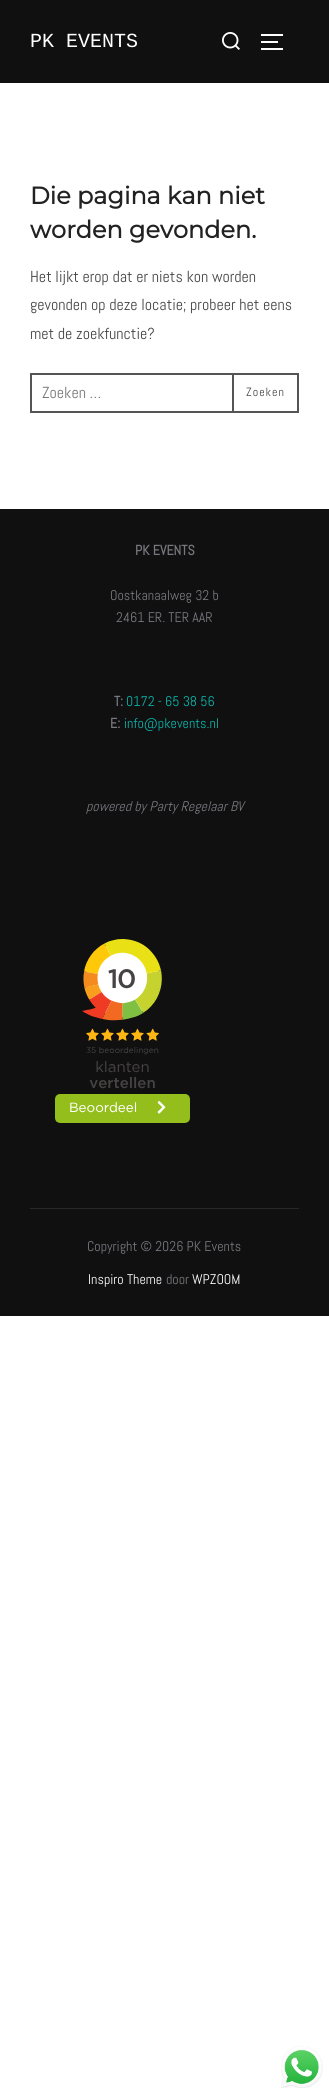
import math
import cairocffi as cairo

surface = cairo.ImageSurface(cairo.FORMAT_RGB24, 329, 2098)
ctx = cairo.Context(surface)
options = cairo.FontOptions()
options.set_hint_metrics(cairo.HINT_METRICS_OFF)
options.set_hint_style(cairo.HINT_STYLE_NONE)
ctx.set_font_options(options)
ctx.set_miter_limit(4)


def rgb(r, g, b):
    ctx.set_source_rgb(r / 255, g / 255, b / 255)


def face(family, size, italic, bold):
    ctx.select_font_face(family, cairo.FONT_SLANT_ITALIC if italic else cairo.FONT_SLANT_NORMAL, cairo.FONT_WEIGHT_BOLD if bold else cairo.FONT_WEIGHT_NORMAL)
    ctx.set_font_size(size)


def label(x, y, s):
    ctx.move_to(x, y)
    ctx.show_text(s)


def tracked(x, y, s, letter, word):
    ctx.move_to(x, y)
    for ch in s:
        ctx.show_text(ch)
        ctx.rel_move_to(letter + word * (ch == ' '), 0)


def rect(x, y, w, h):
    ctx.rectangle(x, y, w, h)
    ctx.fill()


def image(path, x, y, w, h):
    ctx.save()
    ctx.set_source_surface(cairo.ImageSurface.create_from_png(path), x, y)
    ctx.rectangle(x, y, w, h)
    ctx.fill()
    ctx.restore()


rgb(255, 255, 255)
ctx.paint()
rgb(16, 16, 16)
rect(0, 0, 329, 83)
face('Liberation Mono', 20, 0, 0)
rgb(255, 255, 255)
label(30, 47, 'PK EVENTS')
image('image0.png', 222, 32, 18, 18)
rect(261, 34, 22, 2)
rect(261, 41, 17, 2)
rect(261, 48, 22, 2)
face('Montserrat', 24, 0, 1)
rgb(34, 34, 34)
label(30, 204, 'Die pagina kan niet')
label(30, 238, 'worden gevonden.')
face('Abel', 16, 0, 0)
rgb(68, 68, 68)
label(30, 282, 'Het lijkt erop dat er niets kon worden')
label(30, 310, 'gevonden op deze locatie; probeer het eens')
label(30, 339, 'met de zoekfunctie?')
ctx.rectangle(31, 374, 267, 38)
rgb(86, 85, 85)
ctx.stroke()
rgb(117, 117, 117)
label(42, 398, 'Zoeken …')
ctx.rectangle(233, 374, 65, 38)
rgb(86, 85, 85)
ctx.stroke()
face('Abel', 12, 0, 0)
rgb(68, 68, 68)
tracked(246, 396, 'Zoeken', 1, 0)
rgb(16, 16, 16)
rect(0, 509, 329, 807)
face('Abel', 14, 0, 1)
rgb(120, 120, 127)
label(135, 555, 'PK EVENTS')
face('Abel', 14, 0, 0)
label(110, 600, 'Oostkanaalweg 32 b')
label(116, 622, '2461 ER. TER AAR')
face('Abel', 14, 0, 1)
label(114, 706, 'T:')
face('Abel', 14, 0, 0)
rgb(11, 180, 170)
label(126, 706, '0172 - 65 38 56')
face('Abel', 14, 0, 1)
rgb(120, 120, 127)
label(110, 728, 'E:')
face('Abel', 14, 0, 0)
rgb(11, 180, 170)
label(124, 728, 'info@pkevents.nl')
face('Abel', 14, 1, 0)
rgb(120, 120, 127)
label(86, 811, 'powered by Party Regelaar BV')
image('image1.png', 55, 939, 135, 184)
rgb(40, 40, 40)
rect(30, 1208, 269, 1)
face('Abel', 14, 0, 0)
rgb(120, 120, 127)
label(87, 1251, 'Copyright © 2026 PK Events')
rgb(255, 255, 255)
label(88, 1284, 'Inspiro Theme')
rgb(120, 120, 127)
label(166, 1284, 'door')
rgb(255, 255, 255)
label(192, 1284, 'WPZOOM')
image('image2.png', 281, 2046, 42, 42)
surface.write_to_png('render.png')
